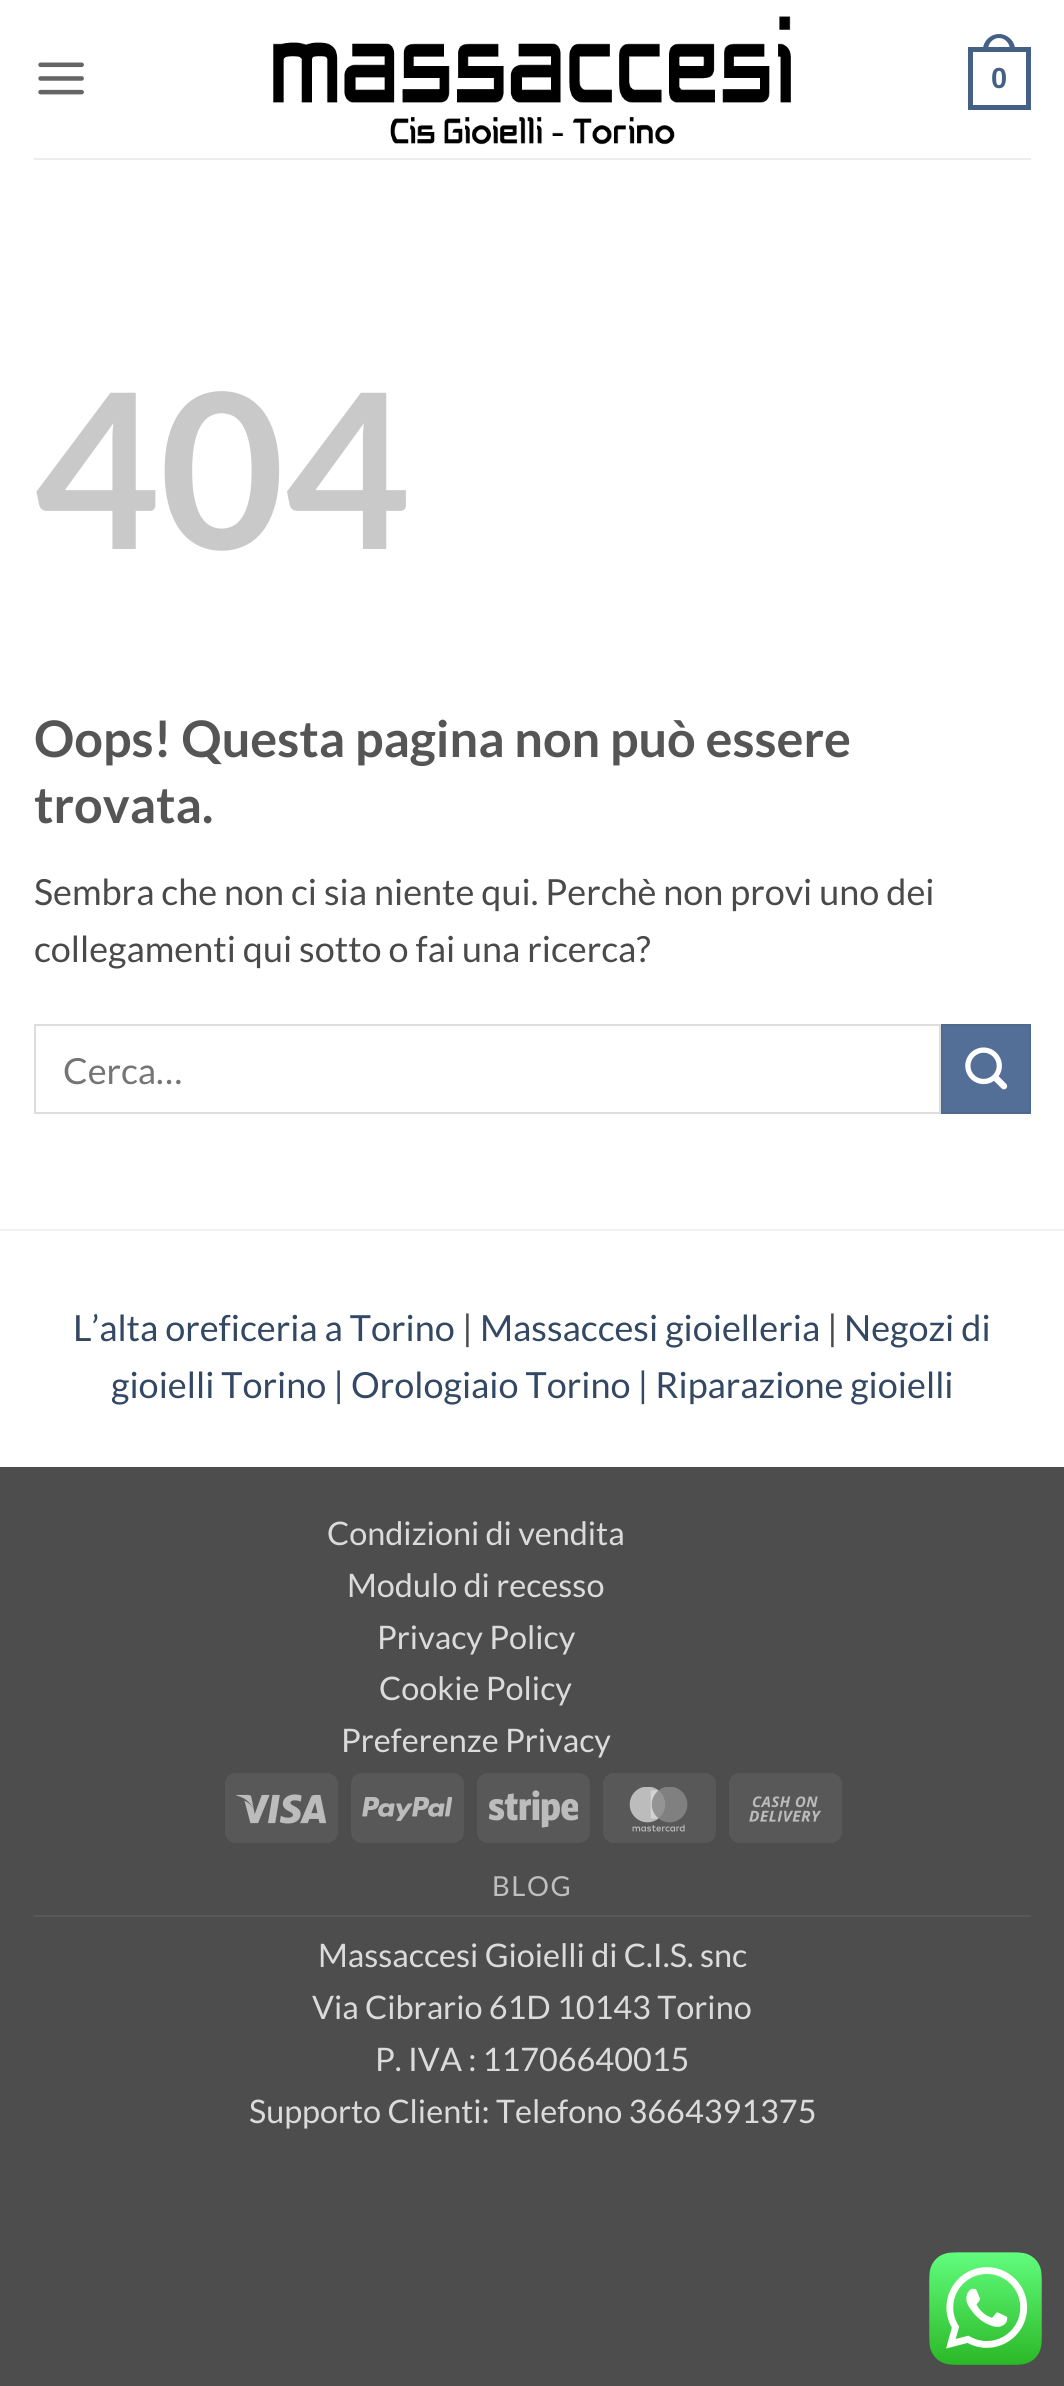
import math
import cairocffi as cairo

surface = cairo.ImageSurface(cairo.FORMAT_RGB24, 1064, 2386)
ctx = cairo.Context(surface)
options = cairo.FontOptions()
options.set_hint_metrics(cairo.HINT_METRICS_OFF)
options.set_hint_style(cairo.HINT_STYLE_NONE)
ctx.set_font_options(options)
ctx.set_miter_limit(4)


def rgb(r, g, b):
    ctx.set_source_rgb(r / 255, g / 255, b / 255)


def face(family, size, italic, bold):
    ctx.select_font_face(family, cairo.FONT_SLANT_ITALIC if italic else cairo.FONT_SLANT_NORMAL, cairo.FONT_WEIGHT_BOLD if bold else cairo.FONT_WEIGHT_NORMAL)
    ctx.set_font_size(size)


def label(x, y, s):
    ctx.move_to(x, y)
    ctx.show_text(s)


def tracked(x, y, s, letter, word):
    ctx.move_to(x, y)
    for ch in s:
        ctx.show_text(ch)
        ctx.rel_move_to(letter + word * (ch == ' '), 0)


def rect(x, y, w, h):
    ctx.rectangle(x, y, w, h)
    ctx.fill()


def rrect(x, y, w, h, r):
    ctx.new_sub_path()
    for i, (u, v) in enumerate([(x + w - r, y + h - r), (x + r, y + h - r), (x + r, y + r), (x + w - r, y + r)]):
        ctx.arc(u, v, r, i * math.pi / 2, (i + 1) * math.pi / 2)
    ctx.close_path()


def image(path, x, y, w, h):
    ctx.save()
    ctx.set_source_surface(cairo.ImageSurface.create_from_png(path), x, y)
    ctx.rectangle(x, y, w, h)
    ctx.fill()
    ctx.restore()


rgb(77, 77, 77)
ctx.paint()
rgb(255, 255, 255)
rect(0, 0, 1064, 1467)
image('image0.png', 38, 62, 46, 33)
image('image1.png', 273, 16, 518, 129)
ctx.rectangle(970.5, 49.5, 58, 58)
rgb(68, 96, 132)
ctx.set_line_width(5)
ctx.stroke()
ctx.set_fill_rule(cairo.FILL_RULE_EVEN_ODD)
ctx.new_path()
ctx.move_to(999, 34)
ctx.curve_to(1007.5, 34, 1015, 41, 1015, 49.5)
ctx.line_to(1015, 52)
ctx.line_to(983, 52)
ctx.line_to(983, 49.5)
ctx.curve_to(983, 41, 990.5, 34, 999, 34)
ctx.close_path()
ctx.move_to(999, 38)
ctx.curve_to(1005, 38, 1010, 43.5, 1010, 49.5)
ctx.line_to(1010, 52)
ctx.line_to(988, 52)
ctx.line_to(988, 49.5)
ctx.curve_to(988, 43.5, 993, 38, 999, 38)
ctx.close_path()
ctx.fill()
face('Liberation Sans', 29, 0, 1)
label(991, 88, '0')
rgb(237, 237, 237)
rect(34, 158, 997, 2)
face('Lato', 216, 0, 1)
rgb(201, 201, 201)
label(34, 549, '404')
face('Lato', 50.4, 0, 1)
rgb(85, 85, 85)
label(34, 757, 'Oops! Questa pagina non può essere')
label(34, 823, 'trovata.')
face('Lato', 36, 0, 0)
rgb(74, 74, 74)
label(34, 905, 'Sembra che non ci sia niente qui. Perchè non provi uno dei')
label(34, 962, 'collegamenti qui sotto o fai una ricerca?')
ctx.rectangle(35, 1025, 905, 88)
rgb(221, 221, 221)
ctx.set_line_width(2)
ctx.stroke()
rgb(117, 117, 117)
label(63, 1084, 'Cerca…')
rgb(83, 111, 151)
ctx.rectangle(942, 1025, 88, 88)
ctx.fill_preserve()
rgb(79, 105, 143)
ctx.stroke()
image('image2.png', 965, 1047, 43, 43)
rgb(242, 242, 242)
rect(0, 1229, 1064, 2)
rgb(51, 72, 98)
label(73, 1341, 'L’alta oreficeria a Torino')
rgb(74, 74, 74)
label(462, 1341, '|')
rgb(51, 72, 98)
label(480, 1341, 'Massaccesi gioielleria')
rgb(74, 74, 74)
label(827, 1341, '|')
rgb(51, 72, 98)
label(844, 1341, 'Negozi di')
label(111, 1398, 'gioielli Torino | Orologiaio Torino | Riparazione gioielli')
face('Lato', 32.4, 0, 0)
rgb(219, 219, 219)
label(327, 1545, 'Condizioni di vendita')
label(347, 1597, 'Modulo di recesso')
label(377, 1649, 'Privacy Policy')
label(379, 1700, 'Cookie Policy')
label(341, 1752, 'Preferenze Privacy')
rgb(88, 88, 88)
rrect(225, 1773, 113, 70, 11)
ctx.fill()
image('image3.png', 236, 1794, 90, 30)
rrect(351, 1773, 113, 70, 11)
ctx.fill()
image('image4.png', 362, 1797, 90, 24)
rrect(477, 1773, 113, 70, 11)
ctx.fill()
image('image5.png', 488, 1790, 90, 38)
rrect(603, 1773, 113, 70, 11)
ctx.fill()
image('image6.png', 629, 1787, 59, 45)
rrect(729, 1773, 113, 70, 11)
ctx.fill()
image('image7.png', 749, 1796, 72, 26)
rect(34, 1915, 997, 2)
face('Lato', 27.5, 0, 0)
rgb(191, 191, 191)
tracked(492, 1896, 'BLOG', 1.5, 0)
face('Lato', 32.4, 0, 0)
rgb(219, 219, 219)
label(318, 1967, 'Massaccesi Gioielli di C.I.S. snc')
label(312, 2019, 'Via Cibrario 61D 10143 Torino')
label(375, 2071, 'P. IVA : 11706640015')
label(249, 2123, 'Supporto Clienti: Telefono 3664391375')
image('image8.png', 929, 2252, 113, 113)
surface.write_to_png('render.png')
